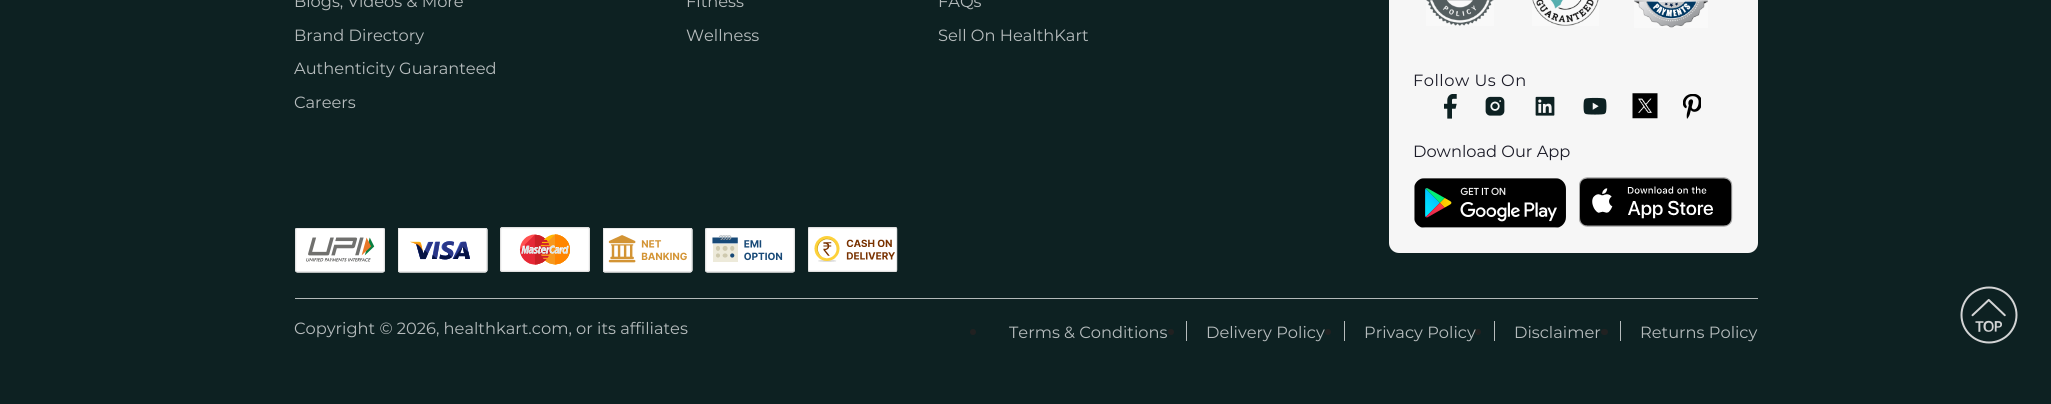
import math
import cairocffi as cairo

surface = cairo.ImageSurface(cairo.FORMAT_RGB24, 2051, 404)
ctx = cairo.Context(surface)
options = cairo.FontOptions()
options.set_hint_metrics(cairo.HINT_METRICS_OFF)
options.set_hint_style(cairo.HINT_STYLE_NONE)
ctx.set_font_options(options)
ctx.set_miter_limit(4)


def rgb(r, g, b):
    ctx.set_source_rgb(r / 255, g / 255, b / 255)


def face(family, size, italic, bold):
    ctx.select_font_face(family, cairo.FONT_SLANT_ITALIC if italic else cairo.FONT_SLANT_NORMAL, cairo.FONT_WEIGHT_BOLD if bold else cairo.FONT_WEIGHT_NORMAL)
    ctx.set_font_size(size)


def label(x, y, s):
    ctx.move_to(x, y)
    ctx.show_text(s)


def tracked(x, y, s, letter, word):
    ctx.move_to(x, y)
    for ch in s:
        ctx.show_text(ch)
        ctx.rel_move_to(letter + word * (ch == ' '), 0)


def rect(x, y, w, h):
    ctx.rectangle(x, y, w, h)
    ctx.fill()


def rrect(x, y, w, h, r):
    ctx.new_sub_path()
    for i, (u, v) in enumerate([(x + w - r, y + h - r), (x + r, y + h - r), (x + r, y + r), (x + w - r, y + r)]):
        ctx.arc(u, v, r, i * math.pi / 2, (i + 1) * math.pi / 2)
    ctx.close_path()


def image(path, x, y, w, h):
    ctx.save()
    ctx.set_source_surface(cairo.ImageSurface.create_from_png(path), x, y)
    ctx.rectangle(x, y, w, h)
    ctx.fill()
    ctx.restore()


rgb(13, 33, 34)
ctx.paint()
face('Montserrat', 16.25, 0, 0)
rgb(182, 188, 189)
label(294, 7, 'Blogs, Videos & More')
label(294, 41, 'Brand Directory')
label(294, 74, 'Authenticity Guaranteed')
label(294, 108, 'Careers')
label(686, 7, 'Fitness')
label(686, 41, 'Wellness')
label(938, 7, 'FAQs')
label(938, 41, 'Sell On HealthKart')
rgb(246, 246, 246)
rrect(1389, -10, 369, 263, 10)
ctx.fill()
image('image0.png', 1426, 0, 68, 26)
image('image1.png', 1532, 0, 67, 26)
image('image2.png', 1634, 0, 74, 28)
rgb(28, 28, 40)
tracked(1413, 86, 'Follow Us On', 0.5, 0)
image('image3.png', 1444, 94, 13, 25)
image('image4.png', 1485, 96, 20, 20)
image('image5.png', 1535, 96, 20, 20)
image('image6.png', 1583, 97, 24, 18)
image('image7.png', 1632, 93, 26, 26)
image('image8.png', 1683, 94, 18, 25)
label(1413, 157, 'Download Our App')
image('image9.png', 1414, 178, 152, 50)
image('image10.png', 1579, 177, 154, 50)
image('image11.png', 295, 228, 90, 45)
image('image12.png', 398, 228, 90, 45)
image('image13.png', 500, 227, 90, 45)
image('image14.png', 603, 228, 90, 45)
image('image15.png', 705, 228, 90, 45)
image('image16.png', 808, 227, 90, 45)
rgb(179, 185, 185)
rect(295, 298, 1463, 1)
rgb(182, 188, 189)
label(294, 334, 'Copyright © 2026, healthkart.com, or its affiliates')
rgb(33, 33, 33)
ctx.new_path()
ctx.arc(973, 332, 3, 0, 2 * math.pi)
ctx.fill()
rgb(182, 188, 189)
label(1009, 338, 'Terms & Conditions')
rect(1186, 321, 1, 20)
rgb(33, 33, 33)
ctx.new_path()
ctx.arc(1171, 332, 3, 0, 2 * math.pi)
ctx.fill()
rgb(182, 188, 189)
label(1206, 338, 'Delivery Policy')
rect(1344, 321, 1, 20)
rgb(33, 33, 33)
ctx.new_path()
ctx.arc(1328, 332, 3, 0, 2 * math.pi)
ctx.fill()
ctx.arc(1478, 332, 3, 0, 2 * math.pi)
ctx.fill()
rgb(182, 188, 189)
label(1364, 338, 'Privacy Policy')
rect(1494, 321, 1, 20)
label(1514, 338, 'Disclaimer')
rect(1620, 321, 1, 20)
rgb(33, 33, 33)
rrect(1601, 329, 7, 6, 3)
ctx.fill()
rgb(182, 188, 189)
label(1640, 338, 'Returns Policy')
image('image17.png', 1960, 286, 58, 58)
surface.write_to_png('render.png')
